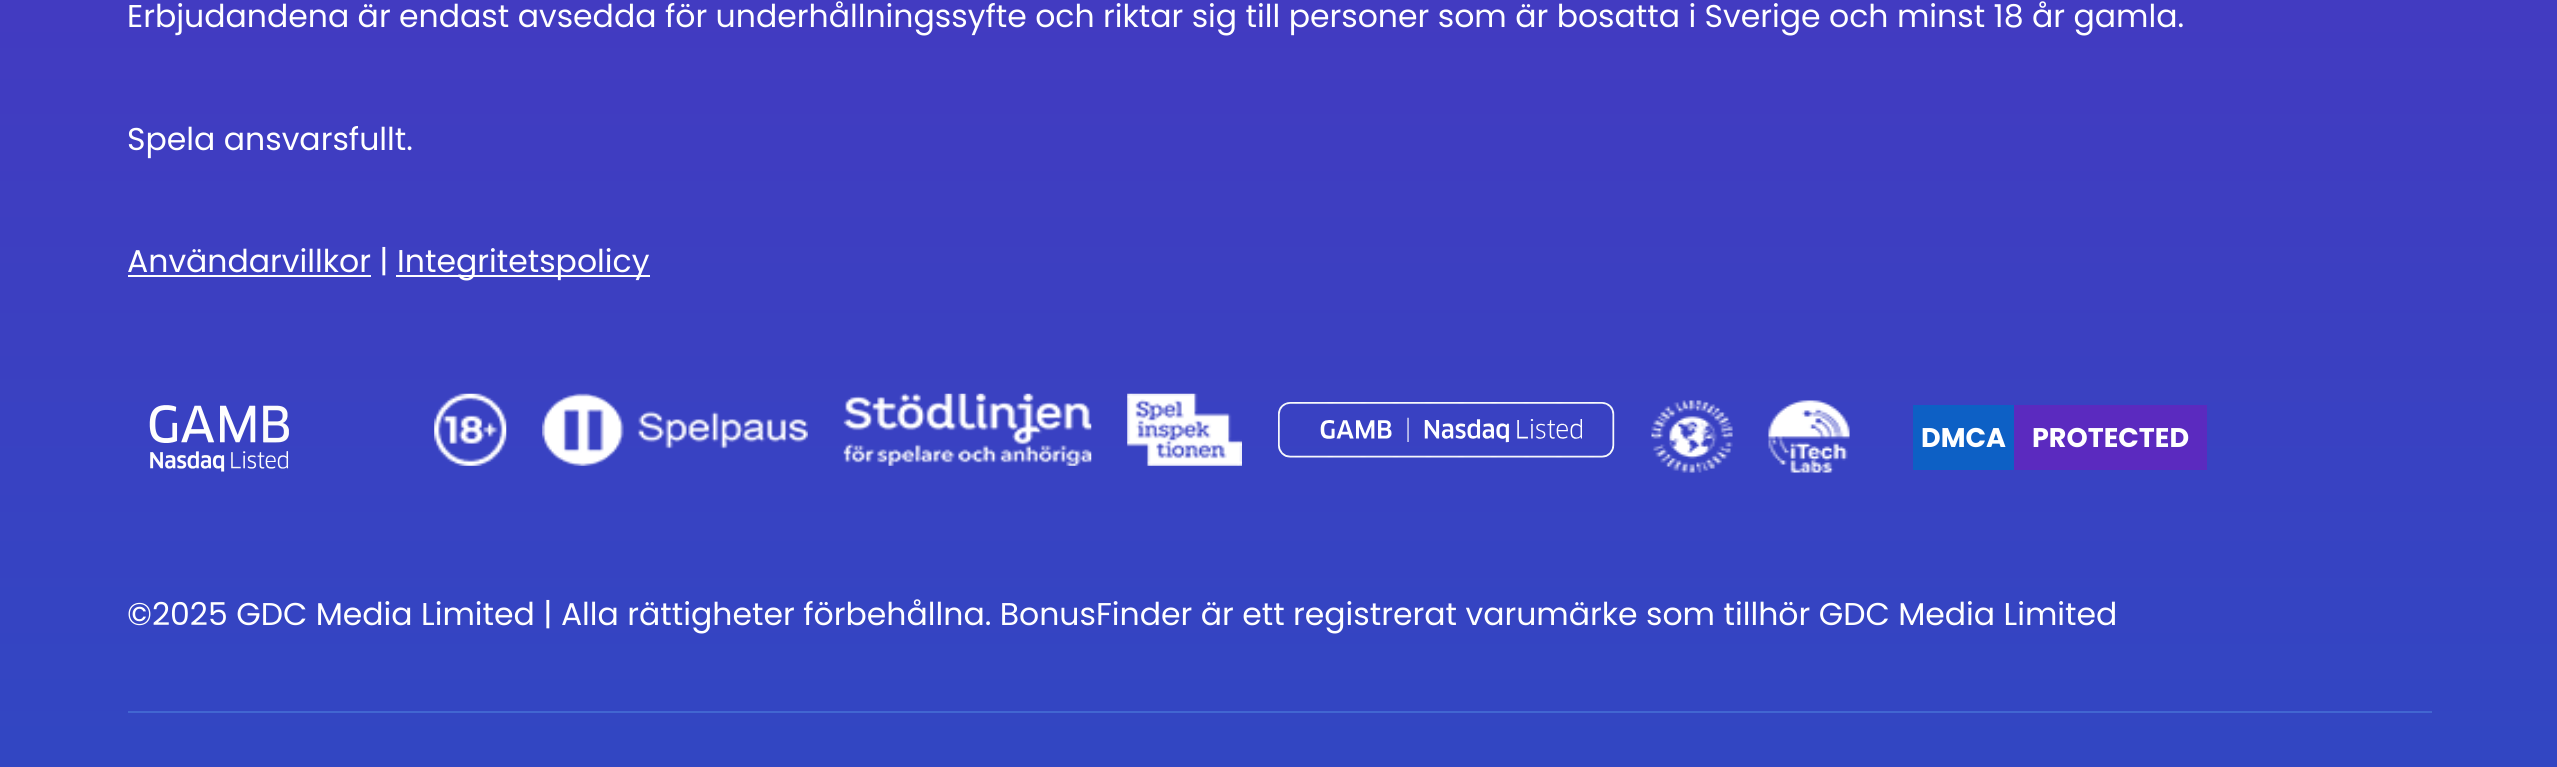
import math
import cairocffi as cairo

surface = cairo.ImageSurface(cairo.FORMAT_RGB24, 2557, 767)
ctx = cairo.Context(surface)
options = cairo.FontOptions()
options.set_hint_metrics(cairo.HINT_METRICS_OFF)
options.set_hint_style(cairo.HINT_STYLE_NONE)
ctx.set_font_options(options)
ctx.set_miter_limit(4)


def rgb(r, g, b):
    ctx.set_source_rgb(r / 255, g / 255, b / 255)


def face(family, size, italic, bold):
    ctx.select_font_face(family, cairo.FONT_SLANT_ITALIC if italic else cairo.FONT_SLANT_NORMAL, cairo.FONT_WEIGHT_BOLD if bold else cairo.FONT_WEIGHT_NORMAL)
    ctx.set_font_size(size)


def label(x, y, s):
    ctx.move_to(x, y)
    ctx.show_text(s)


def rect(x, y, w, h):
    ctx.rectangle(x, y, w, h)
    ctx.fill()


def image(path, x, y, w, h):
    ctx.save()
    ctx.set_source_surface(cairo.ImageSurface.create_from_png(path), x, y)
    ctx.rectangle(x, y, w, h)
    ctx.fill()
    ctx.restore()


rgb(255, 255, 255)
ctx.paint()
gradient = cairo.LinearGradient(1279, -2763, 1279, 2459)
gradient.add_color_stop_rgba(0, 0.494, 0.067, 0.737, 1)
gradient.add_color_stop_rgba(1, 0.051, 0.376, 0.773, 1)
ctx.set_source(gradient)
rect(0, 0, 2557, 767)
rgb(66, 102, 209)
rect(128, 711, 2304, 2)
face('Poppins', 31.5, 0, 0)
rgb(255, 255, 255)
label(127, 27, 'Erbjudandena är endast avsedda för underhållningssyfte och riktar sig till personer som är bosatta i Sverige och minst 18 år gamla.')
label(127, 150, 'Spela ansvarsfullt.')
rect(128, 275, 243, 2)
label(127, 272, 'Användarvillkor |')
rect(396, 275, 254, 2)
label(397, 272, 'Integritetspolicy')
image('image0.png', 149, 405, 140, 67)
image('image1.png', 434, 393, 73, 73)
image('image2.png', 542, 393, 266, 73)
image('image3.png', 843, 393, 249, 73)
image('image4.png', 1127, 393, 115, 73)
image('image5.png', 1278, 402, 337, 56)
image('image6.png', 1651, 400, 82, 73)
image('image7.png', 1768, 400, 82, 73)
rgb(13, 96, 197)
rect(1913, 405, 101, 65)
face('Poppins', 27, 0, 1)
rgb(255, 255, 255)
label(1921, 447, 'DMCA')
rgb(91, 42, 191)
rect(2014, 405, 193, 65)
rgb(255, 255, 255)
label(2032, 447, 'PROTECTED')
face('Poppins', 31.5, 0, 0)
label(127, 625, '©2025 GDC Media Limited | Alla rättigheter förbehållna. BonusFinder är ett registrerat varumärke som tillhör GDC Media Limited')
surface.write_to_png('render.png')
